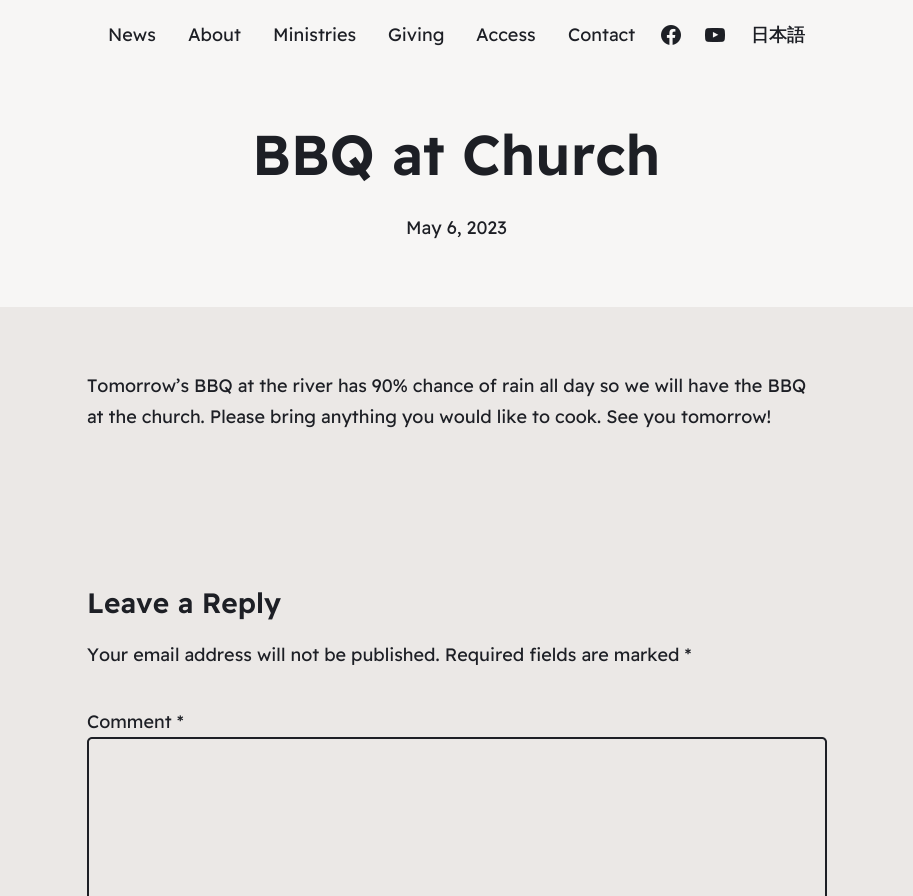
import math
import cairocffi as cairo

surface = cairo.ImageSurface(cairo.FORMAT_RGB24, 913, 896)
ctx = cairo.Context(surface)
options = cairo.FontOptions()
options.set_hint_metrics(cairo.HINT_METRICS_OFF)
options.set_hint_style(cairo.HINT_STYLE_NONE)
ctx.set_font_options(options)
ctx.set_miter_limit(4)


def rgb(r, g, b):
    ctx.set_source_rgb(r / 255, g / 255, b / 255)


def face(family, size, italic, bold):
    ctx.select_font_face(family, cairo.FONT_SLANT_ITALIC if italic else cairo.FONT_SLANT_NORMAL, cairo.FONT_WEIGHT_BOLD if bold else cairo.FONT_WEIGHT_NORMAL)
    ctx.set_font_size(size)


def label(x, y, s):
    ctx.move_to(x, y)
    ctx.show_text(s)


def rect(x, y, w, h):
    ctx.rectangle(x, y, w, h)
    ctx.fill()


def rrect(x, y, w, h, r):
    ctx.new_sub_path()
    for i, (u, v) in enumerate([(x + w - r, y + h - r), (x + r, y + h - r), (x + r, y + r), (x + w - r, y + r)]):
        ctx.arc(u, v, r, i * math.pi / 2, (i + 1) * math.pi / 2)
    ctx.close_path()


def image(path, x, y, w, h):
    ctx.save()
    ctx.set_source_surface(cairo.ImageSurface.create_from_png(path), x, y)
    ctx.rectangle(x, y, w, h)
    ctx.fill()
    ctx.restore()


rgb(235, 232, 230)
ctx.paint()
rgb(247, 246, 245)
rect(0, 0, 913, 307)
face('Readex Pro', 18, 0, 0)
rgb(29, 31, 37)
label(108, 41, 'News')
label(188, 41, 'About')
label(273, 41, 'Ministries')
label(388, 41, 'Giving')
label(476, 41, 'Access')
label(568, 41, 'Contact')
image('image0.png', 661, 25, 20, 20)
image('image1.png', 705, 28, 20, 14)
face('WenQuanYi Zen Hei', 18, 0, 1)
label(751, 41, '日本語')
face('Readex Pro SemiBold', 56, 0, 0)
label(252, 175, 'BBQ at Church')
face('Readex Pro', 18, 0, 0)
label(406, 234, 'May 6, 2023')
label(87, 392, 'Tomorrow’s BBQ at the river has 90% chance of rain all day so we will have the BBQ')
label(87, 423, 'at the church. Please bring anything you would like to cook. See you tomorrow!')
face('Readex Pro SemiBold', 28, 0, 0)
label(87, 613, 'Leave a Reply')
face('Readex Pro', 18, 0, 0)
label(87, 661, 'Your email address will not be published. Required fields are marked *')
label(87, 728, 'Comment *')
rrect(88, 738, 738, 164, 4)
ctx.stroke()
surface.write_to_png('render.png')
